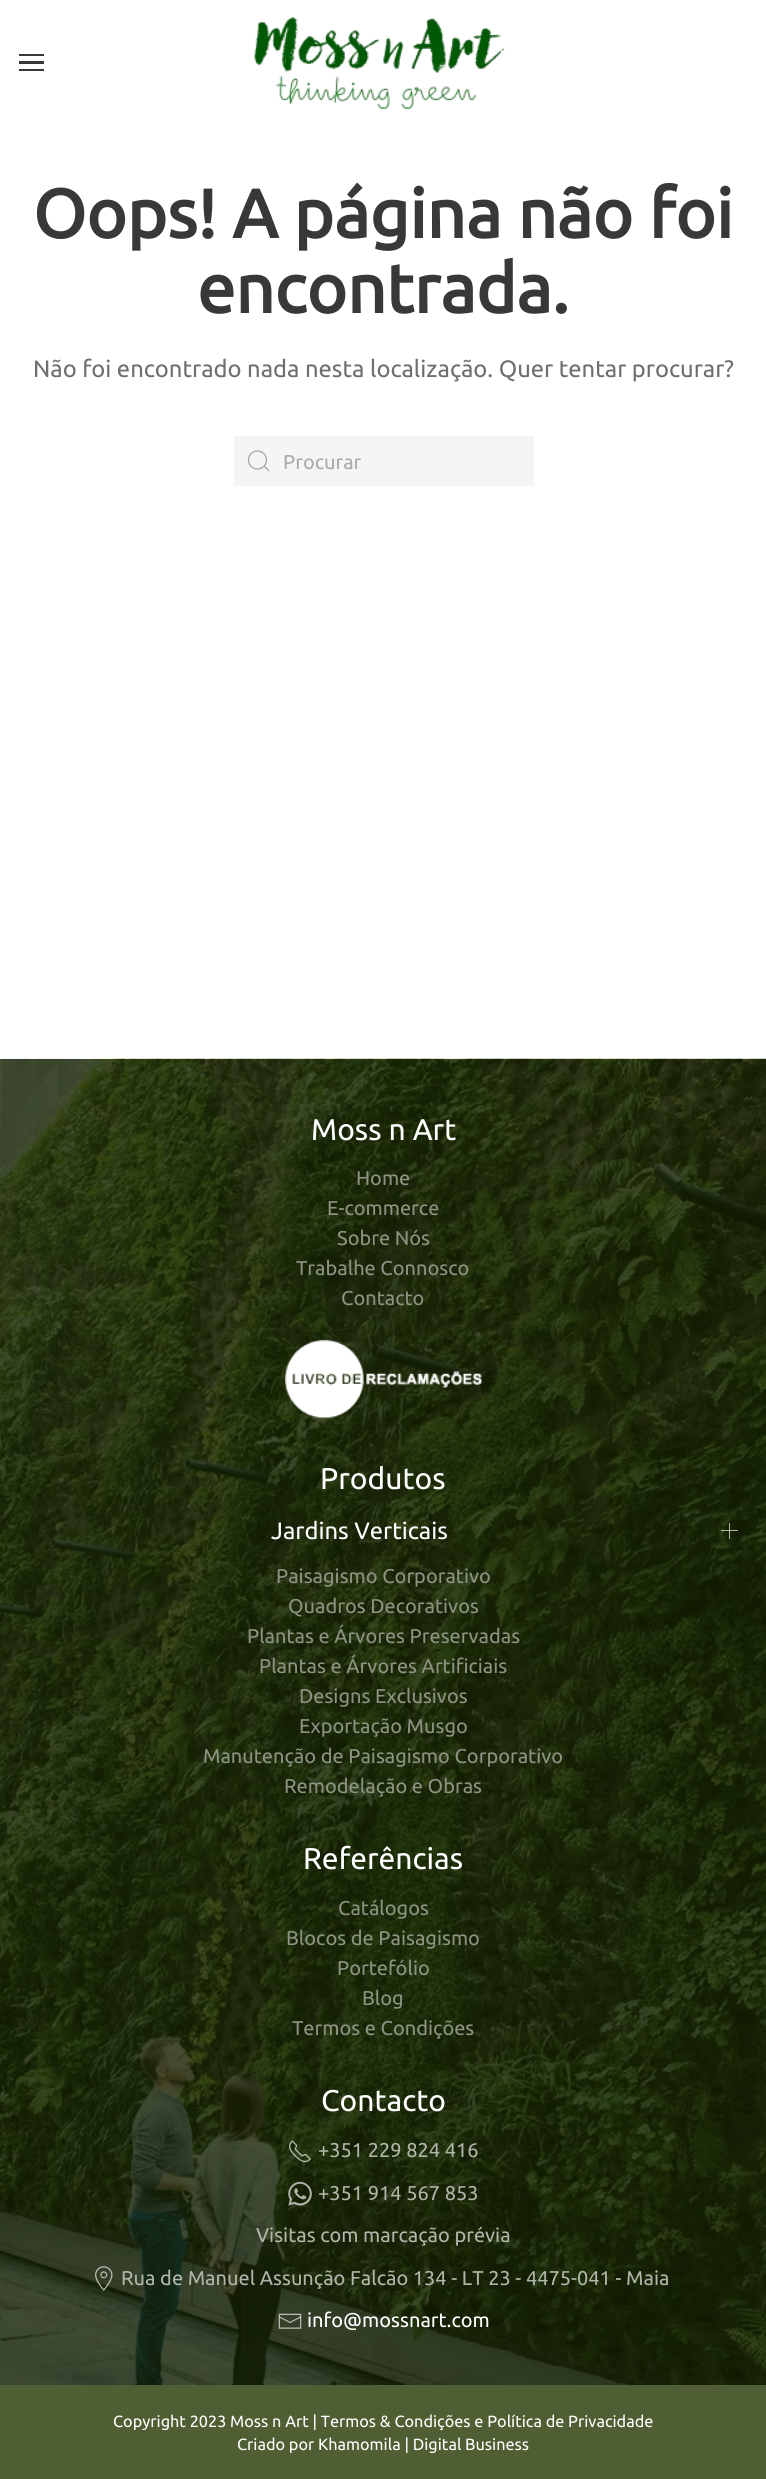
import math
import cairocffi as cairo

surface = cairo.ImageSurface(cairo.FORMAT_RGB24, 766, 2479)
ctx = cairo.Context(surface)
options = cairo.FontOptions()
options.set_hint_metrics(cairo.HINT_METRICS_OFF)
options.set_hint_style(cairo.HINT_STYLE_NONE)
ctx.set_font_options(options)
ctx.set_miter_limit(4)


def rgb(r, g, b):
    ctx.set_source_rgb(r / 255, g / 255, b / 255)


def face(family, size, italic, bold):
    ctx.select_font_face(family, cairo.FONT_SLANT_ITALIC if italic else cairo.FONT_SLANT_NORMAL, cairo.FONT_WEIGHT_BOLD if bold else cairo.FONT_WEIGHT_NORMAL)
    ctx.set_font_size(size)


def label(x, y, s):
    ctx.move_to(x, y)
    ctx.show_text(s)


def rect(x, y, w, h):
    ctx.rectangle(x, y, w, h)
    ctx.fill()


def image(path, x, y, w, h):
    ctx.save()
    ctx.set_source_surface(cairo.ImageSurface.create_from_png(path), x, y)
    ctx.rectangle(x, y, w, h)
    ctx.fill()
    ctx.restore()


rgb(255, 255, 255)
ctx.paint()
rgb(56, 56, 56)
rect(19, 54, 25, 2)
rect(19, 61, 25, 3)
rect(19, 69, 25, 2)
image('image0.png', 254, 17, 251, 92)
face('Ubuntu', 68.5, 0, 1)
label(33, 238, 'Oops! A página não foi')
label(197, 313, 'encontrada.')
face('Ubuntu', 23.75, 0, 0)
rgb(111, 111, 111)
label(33, 377, 'Não foi encontrado nada nesta localização. Quer tentar procurar?')
rgb(245, 245, 245)
rect(234, 436, 300, 50)
ctx.new_path()
ctx.arc(257.5, 460, 9, 0, 2 * math.pi)
rgb(170, 170, 170)
ctx.set_line_width(1.4)
ctx.stroke()
ctx.new_path()
ctx.move_to(264, 466)
ctx.line_to(269, 471)
ctx.close_path()
ctx.stroke()
face('Ubuntu', 20, 0, 0)
label(283, 469, 'Procurar')
image('image1.png', 0, 1058, 766, 1327)
face('Ubuntu', 30, 0, 0)
rgb(255, 255, 255)
label(311, 1140, 'Moss n Art')
face('Ubuntu', 20, 0, 0)
rgb(141, 147, 131)
label(356, 1185, 'Home')
label(327, 1215, 'E-commerce')
label(337, 1245, 'Sobre Nós')
label(296, 1275, 'Trabalhe Connosco')
label(341, 1305, 'Contacto')
image('image2.png', 284, 1339, 199, 80)
face('Ubuntu', 30, 0, 0)
rgb(255, 255, 255)
label(320, 1489, 'Produtos')
face('Ubuntu', 23.75, 0, 0)
label(271, 1539, 'Jardins Verticais')
ctx.set_source_rgba(1, 1, 1, 0.65)
rect(721, 1530, 17, 1)
rect(729, 1523, 1, 16)
face('Ubuntu', 20, 0, 0)
rgb(141, 147, 131)
label(276, 1583, 'Paisagismo Corporativo')
label(288, 1613, 'Quadros Decorativos')
label(247, 1643, 'Plantas e Árvores Preservadas')
label(259, 1673, 'Plantas e Árvores Artificiais')
label(299, 1703, 'Designs Exclusivos')
label(299, 1733, 'Exportação Musgo')
label(203, 1763, 'Manutenção de Paisagismo Corporativo')
label(284, 1793, 'Remodelação e Obras')
face('Ubuntu', 30, 0, 0)
rgb(255, 255, 255)
label(303, 1869, 'Referências')
face('Ubuntu', 20, 0, 0)
rgb(141, 147, 131)
label(338, 1915, 'Catálogos')
label(286, 1945, 'Blocos de Paisagismo')
label(337, 1975, 'Portefólio')
label(362, 2005, 'Blog')
label(292, 2035, 'Termos e Condições')
face('Ubuntu', 30, 0, 0)
rgb(255, 255, 255)
label(321, 2111, 'Contacto')
image('image3.png', 289, 2140, 22, 23)
face('Ubuntu', 20, 0, 0)
rgb(176, 181, 169)
label(318, 2157, '+351 229 824 416')
image('image4.png', 288, 2181, 24, 25)
label(318, 2200, '+351 914 567 853')
label(256, 2242, 'Visitas com marcação prévia')
image('image5.png', 95, 2266, 18, 25)
label(121, 2285, 'Rua de Manuel Assunção Falcão 134 - LT 23 - 4475-041 - Maia')
image('image6.png', 278, 2313, 24, 16)
rgb(255, 255, 255)
label(307, 2327, 'info@mossnart.com')
rgb(79, 94, 51)
rect(0, 2385, 766, 94)
face('Ubuntu', 16.25, 0, 0)
rgb(255, 255, 255)
label(113, 2427, 'Copyright 2023 Moss n Art | Termos & Condições e Política de Privacidade')
label(237, 2450, 'Criado por Khamomila | Digital Business')
surface.write_to_png('render.png')
